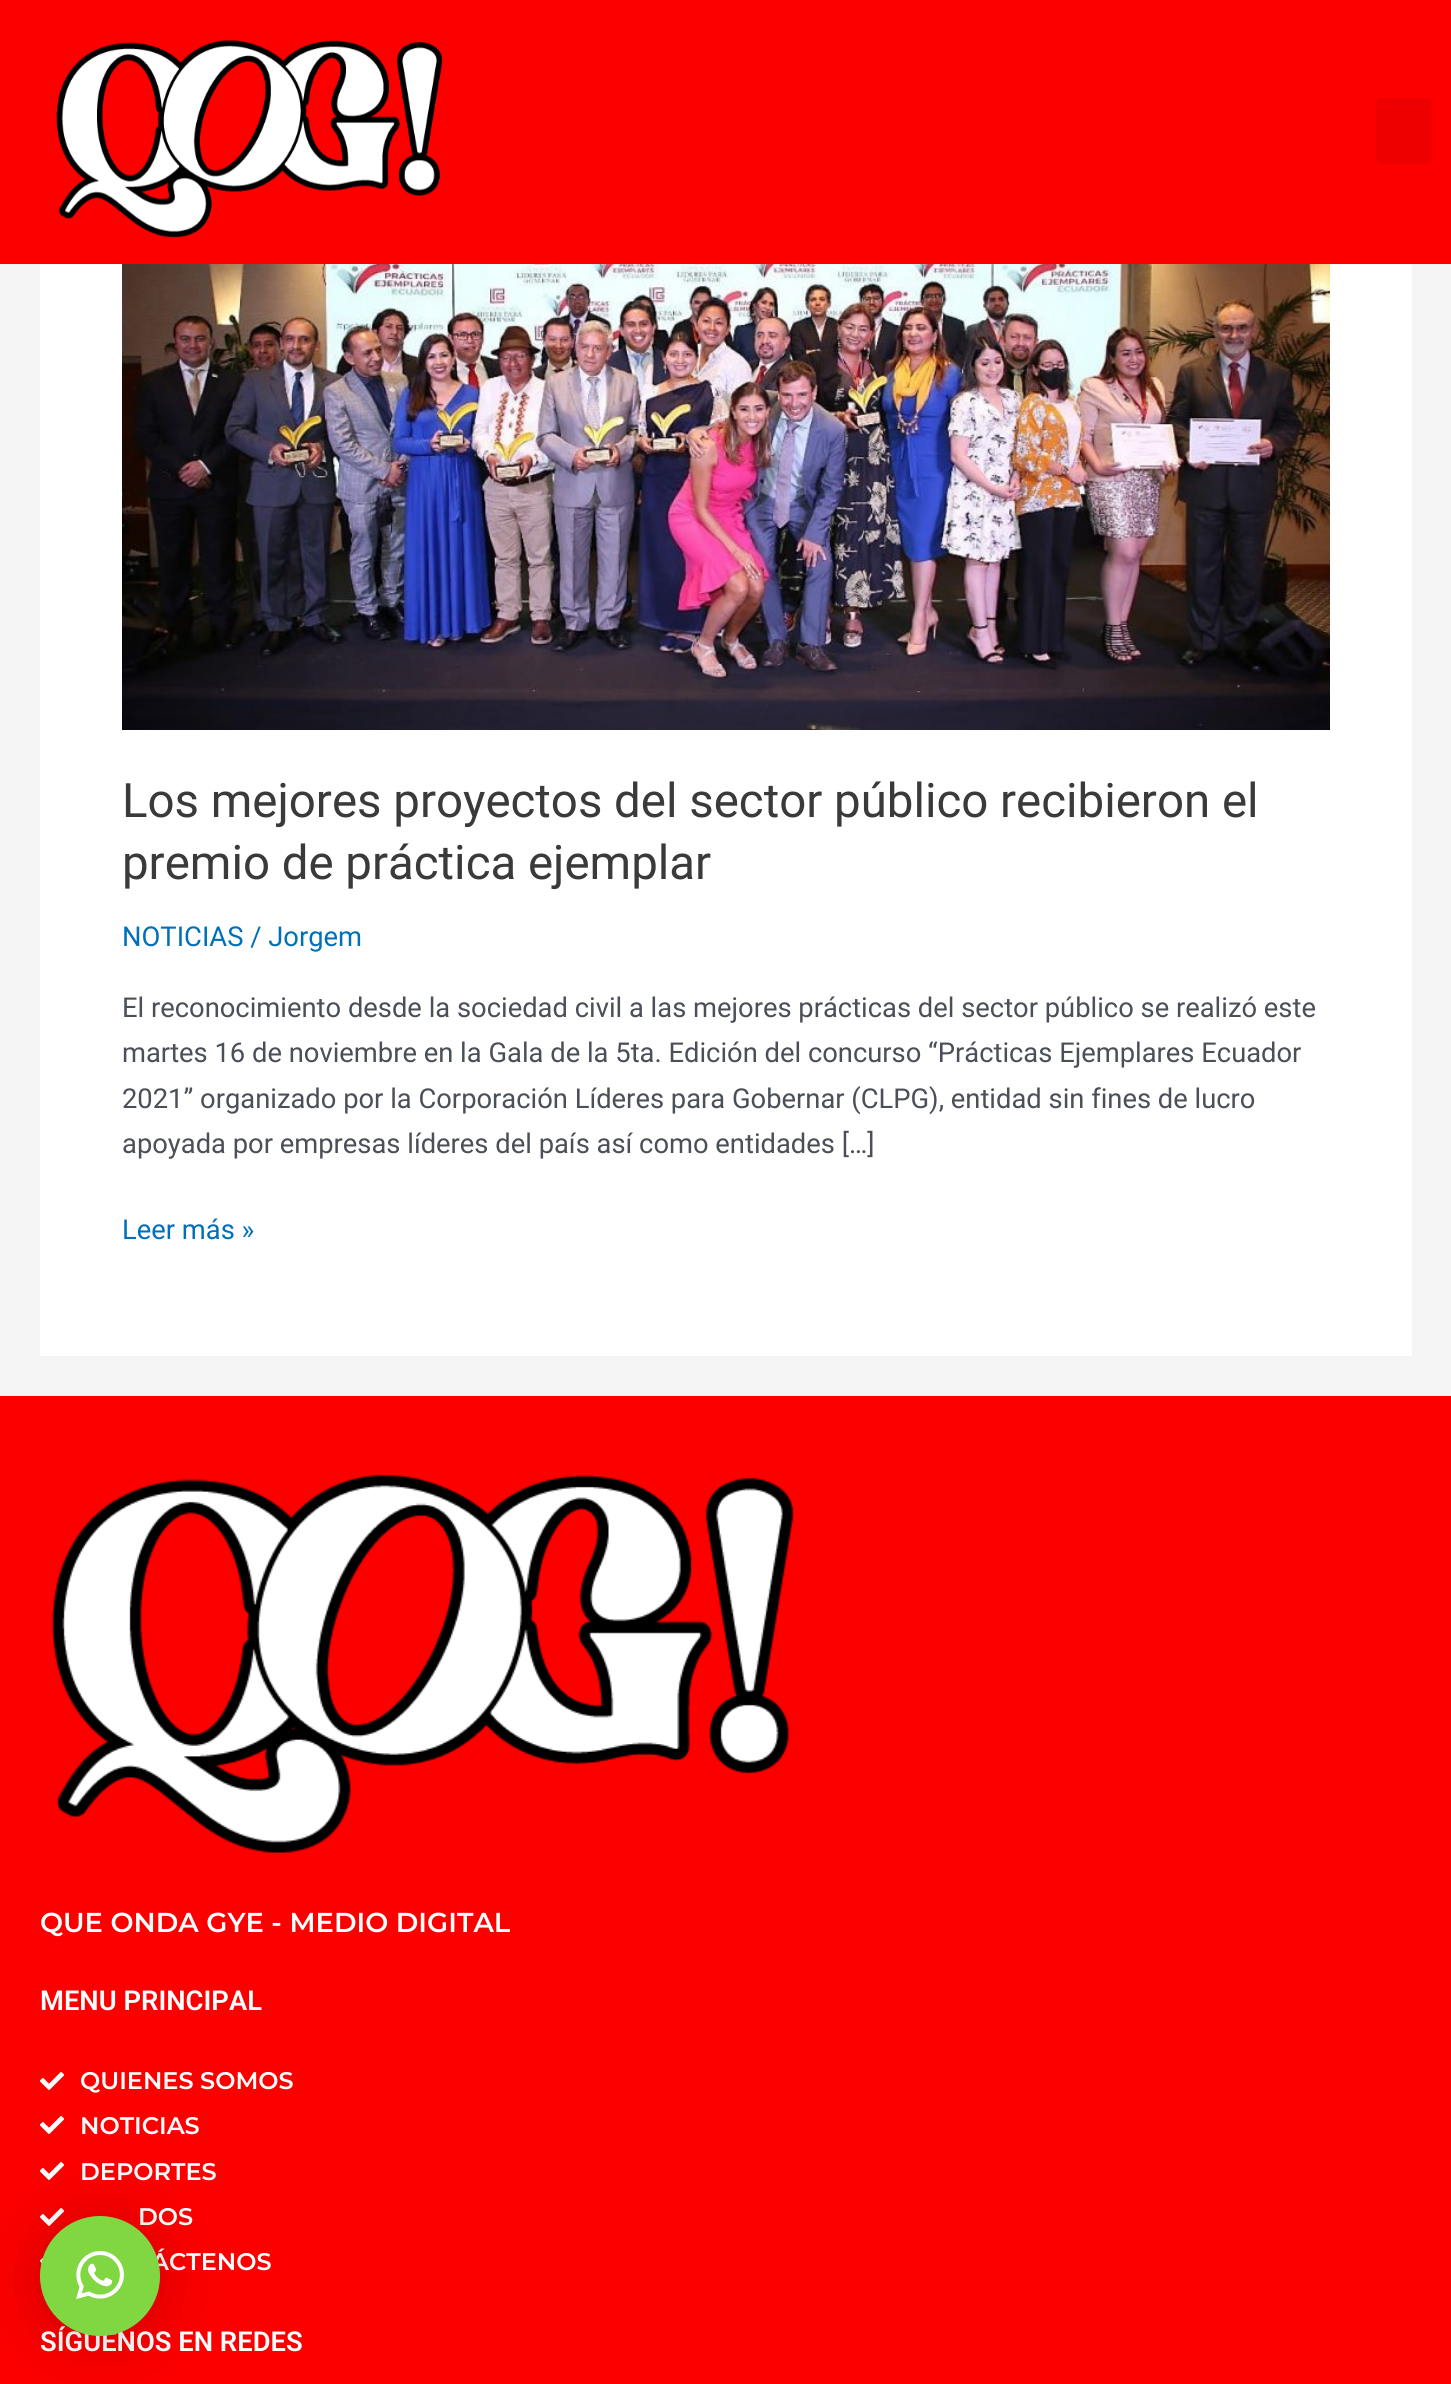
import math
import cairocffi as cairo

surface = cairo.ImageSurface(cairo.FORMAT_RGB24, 1451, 2384)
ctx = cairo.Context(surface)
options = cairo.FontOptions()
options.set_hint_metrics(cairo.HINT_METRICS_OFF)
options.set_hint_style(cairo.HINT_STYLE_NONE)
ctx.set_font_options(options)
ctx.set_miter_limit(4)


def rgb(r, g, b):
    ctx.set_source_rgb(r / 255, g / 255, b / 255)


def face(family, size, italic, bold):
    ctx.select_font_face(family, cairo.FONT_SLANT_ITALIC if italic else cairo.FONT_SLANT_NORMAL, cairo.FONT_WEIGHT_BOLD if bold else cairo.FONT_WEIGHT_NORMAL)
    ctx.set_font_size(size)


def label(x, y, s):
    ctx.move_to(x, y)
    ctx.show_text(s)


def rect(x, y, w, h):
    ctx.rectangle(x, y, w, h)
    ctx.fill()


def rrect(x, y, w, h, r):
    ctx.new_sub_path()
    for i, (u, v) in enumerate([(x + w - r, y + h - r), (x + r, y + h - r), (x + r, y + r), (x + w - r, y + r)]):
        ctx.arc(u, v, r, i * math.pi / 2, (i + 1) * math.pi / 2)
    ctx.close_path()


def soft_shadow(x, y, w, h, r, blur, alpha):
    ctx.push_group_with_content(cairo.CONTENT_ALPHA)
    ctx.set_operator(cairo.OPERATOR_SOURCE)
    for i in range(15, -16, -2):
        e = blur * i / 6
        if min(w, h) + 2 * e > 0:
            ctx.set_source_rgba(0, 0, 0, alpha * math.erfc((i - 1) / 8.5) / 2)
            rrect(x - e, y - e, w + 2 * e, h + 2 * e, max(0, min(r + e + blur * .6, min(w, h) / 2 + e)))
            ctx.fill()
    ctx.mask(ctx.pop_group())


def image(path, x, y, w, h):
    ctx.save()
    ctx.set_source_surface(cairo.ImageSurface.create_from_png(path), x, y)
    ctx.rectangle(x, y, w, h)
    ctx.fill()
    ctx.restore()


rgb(245, 245, 245)
ctx.paint()
rgb(252, 0, 0)
rect(0, 0, 1451, 264)
image('image0.png', 56, 40, 387, 198)
rgb(239, 0, 0)
rrect(1376, 98, 56, 66, 6)
ctx.fill()
rgb(255, 255, 255)
rect(40, 264, 1372, 1092)
image('image1.png', 122, 264, 1208, 466)
face('Roboto', 47.4, 0, 0)
rgb(58, 58, 58)
label(122, 817, 'Los mejores proyectos del sector público recibieron el')
label(122, 879, 'premio de práctica ejemplar')
face('Roboto', 27.35, 0, 0)
rgb(1, 112, 185)
label(122, 946, 'NOTICIAS / Jorgem')
rgb(75, 79, 88)
label(122, 1017, 'El reconocimiento desde la sociedad civil a las mejores prácticas del sector público se realizó este')
label(122, 1062, 'martes 16 de noviembre en la Gala de la 5ta. Edición del concurso “Prácticas Ejemplares Ecuador')
label(122, 1108, '2021” organizado por la Corporación Líderes para Gobernar (CLPG), entidad sin fines de lucro')
label(122, 1153, 'apoyada por empresas líderes del país así como entidades […]')
rgb(1, 112, 185)
label(122, 1239, 'Leer más »')
rgb(252, 0, 0)
rect(0, 1396, 1451, 988)
image('image2.png', 51, 1474, 743, 379)
face('Montserrat SemiBold', 27.35, 0, 0)
rgb(255, 255, 255)
label(40, 1932, 'QUE ONDA GYE - MEDIO DIGITAL')
face('Roboto SemiBold', 27.35, 0, 0)
label(40, 2010, 'MENU PRINCIPAL')
image('image3.png', 40, 2072, 24, 18)
face('Montserrat SemiBold', 24, 0, 0)
label(80, 2089, 'QUIENES SOMOS')
image('image3.png', 40, 2116, 24, 18)
label(80, 2134, 'NOTICIAS')
image('image3.png', 40, 2162, 24, 18)
label(80, 2180, 'DEPORTES')
image('image3.png', 40, 2208, 24, 18)
label(138, 2225, 'DOS')
image('image4.png', 40, 2258, 3, 6)
label(151, 2270, 'ÁCTENOS')
face('Roboto SemiBold', 27.35, 0, 0)
label(40, 2351, 'SÍGUENOS EN REDES')
rgb(0, 0, 0)
soft_shadow(40, 2220, 120, 120, 60, 32, 0.16)
soft_shadow(40, 2218, 120, 120, 60, 6, 0.06)
rgb(129, 215, 66)
ctx.arc(100, 2276, 60, 0, 2 * math.pi)
ctx.fill()
image('image5.png', 76, 2251, 48, 48)
surface.write_to_png('render.png')
